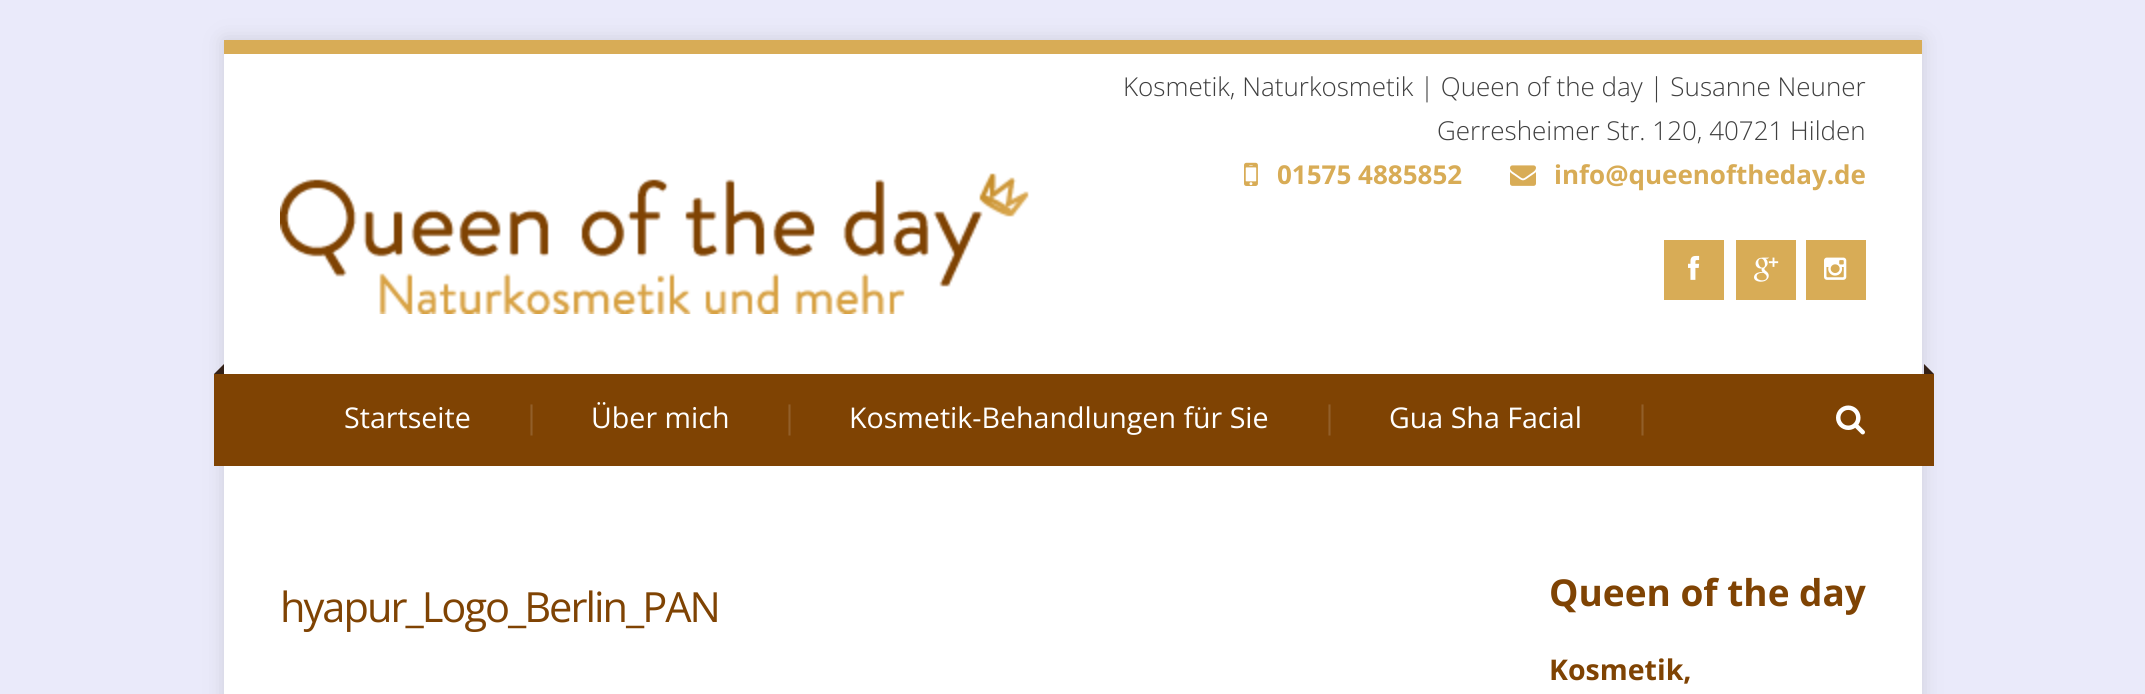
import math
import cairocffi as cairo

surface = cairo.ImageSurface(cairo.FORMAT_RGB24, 2145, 694)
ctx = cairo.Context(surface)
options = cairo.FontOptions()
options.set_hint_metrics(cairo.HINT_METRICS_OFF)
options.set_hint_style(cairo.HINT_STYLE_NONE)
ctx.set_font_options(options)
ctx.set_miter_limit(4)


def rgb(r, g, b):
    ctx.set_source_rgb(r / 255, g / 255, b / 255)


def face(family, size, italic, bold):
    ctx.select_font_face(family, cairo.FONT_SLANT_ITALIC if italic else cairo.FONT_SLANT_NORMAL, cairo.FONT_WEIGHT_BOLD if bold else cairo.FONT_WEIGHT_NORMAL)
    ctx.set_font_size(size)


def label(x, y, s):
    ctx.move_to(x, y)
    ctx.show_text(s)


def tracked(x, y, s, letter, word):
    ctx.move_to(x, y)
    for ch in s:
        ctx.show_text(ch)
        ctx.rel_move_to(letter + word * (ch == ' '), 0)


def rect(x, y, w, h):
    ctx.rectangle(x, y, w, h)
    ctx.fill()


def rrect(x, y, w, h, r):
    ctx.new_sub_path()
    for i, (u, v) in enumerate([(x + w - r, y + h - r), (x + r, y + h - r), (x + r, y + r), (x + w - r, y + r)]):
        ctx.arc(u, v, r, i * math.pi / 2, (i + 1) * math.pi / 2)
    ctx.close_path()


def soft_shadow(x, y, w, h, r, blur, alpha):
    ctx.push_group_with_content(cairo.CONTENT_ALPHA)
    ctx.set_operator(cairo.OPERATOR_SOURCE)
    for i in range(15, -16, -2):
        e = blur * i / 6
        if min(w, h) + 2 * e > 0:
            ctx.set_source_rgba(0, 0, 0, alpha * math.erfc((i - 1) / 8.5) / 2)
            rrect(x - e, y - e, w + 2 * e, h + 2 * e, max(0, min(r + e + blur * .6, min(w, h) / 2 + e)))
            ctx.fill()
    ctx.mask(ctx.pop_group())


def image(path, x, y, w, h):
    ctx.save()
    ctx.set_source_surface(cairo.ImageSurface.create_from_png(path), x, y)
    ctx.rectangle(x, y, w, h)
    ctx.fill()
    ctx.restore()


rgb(234, 234, 250)
ctx.paint()
rgb(87, 87, 87)
soft_shadow(224, 40, 1698, 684, 0, 10, 0.2)
rgb(255, 255, 255)
rect(224, 54, 1698, 640)
rgb(216, 172, 86)
rect(224, 40, 1698, 14)
face('Open Sans Light', 26, 0, 0)
rgb(63, 63, 63)
label(1123, 96, 'Kosmetik, Naturkosmetik | Queen of the day | Susanne Neuner')
label(1437, 140, 'Gerresheimer Str. 120, 40721 Hilden')
image('image0.png', 1244, 162, 14, 24)
face('Open Sans', 26, 0, 1)
rgb(216, 172, 86)
label(1277, 184, '01575 4885852')
image('image1.png', 1510, 165, 26, 21)
label(1554, 184, 'info@queenoftheday.de')
image('image2.png', 280, 173, 749, 141)
rect(1664, 240, 60, 60)
image('image3.png', 1688, 255, 12, 25)
rect(1736, 240, 60, 60)
image('image4.png', 1754, 257, 25, 25)
rect(1806, 240, 60, 60)
image('image5.png', 1824, 257, 23, 23)
rgb(127, 67, 3)
rect(214, 374, 1720, 92)
rgb(52, 33, 23)
ctx.new_path()
ctx.move_to(224, 374)
ctx.line_to(214, 374)
ctx.line_to(224, 364)
ctx.close_path()
ctx.fill()
ctx.new_path()
ctx.move_to(1934, 374)
ctx.line_to(1924, 374)
ctx.line_to(1924, 364)
ctx.close_path()
ctx.fill()
face('Open Sans', 28.6, 0, 0)
rgb(255, 255, 255)
label(344, 428, 'Startseite')
face('Open Sans', 31, 0, 0)
rgb(146, 95, 41)
label(523, 428, '|')
face('Open Sans', 28.6, 0, 0)
rgb(255, 255, 255)
label(591, 428, 'Über mich')
face('Open Sans', 31, 0, 0)
rgb(146, 95, 41)
label(781, 428, '|')
face('Open Sans', 28.6, 0, 0)
rgb(255, 255, 255)
label(849, 428, 'Kosmetik-Behandlungen für Sie')
face('Open Sans', 31, 0, 0)
rgb(146, 95, 41)
label(1321, 428, '|')
face('Open Sans', 28.6, 0, 0)
rgb(255, 255, 255)
label(1389, 428, 'Gua Sha Facial')
face('Open Sans', 31, 0, 0)
rgb(146, 95, 41)
label(1634, 428, '|')
image('image6.png', 1836, 405, 29, 30)
face('Open Sans', 41.6, 0, 0)
rgb(127, 67, 3)
tracked(280, 622, 'hyapur_Logo_Berlin_PAN', -2, 0)
face('Open Sans', 37, 0, 1)
label(1549, 606, 'Queen of the day')
face('Open Sans', 28.5, 0, 1)
label(1549, 680, 'Kosmetik,')
surface.write_to_png('render.png')
